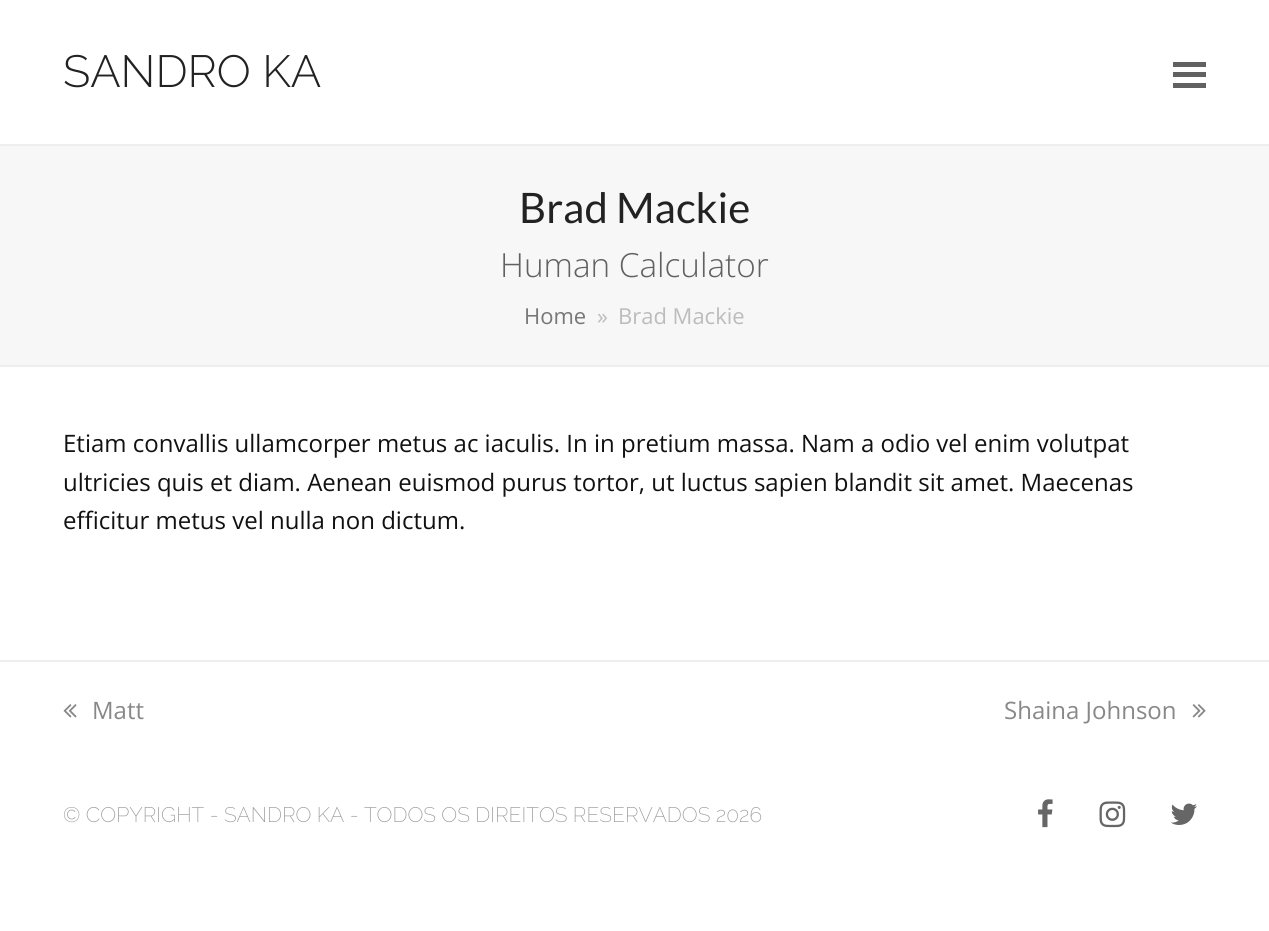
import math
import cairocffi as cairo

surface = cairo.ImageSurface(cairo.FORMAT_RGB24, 1269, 931)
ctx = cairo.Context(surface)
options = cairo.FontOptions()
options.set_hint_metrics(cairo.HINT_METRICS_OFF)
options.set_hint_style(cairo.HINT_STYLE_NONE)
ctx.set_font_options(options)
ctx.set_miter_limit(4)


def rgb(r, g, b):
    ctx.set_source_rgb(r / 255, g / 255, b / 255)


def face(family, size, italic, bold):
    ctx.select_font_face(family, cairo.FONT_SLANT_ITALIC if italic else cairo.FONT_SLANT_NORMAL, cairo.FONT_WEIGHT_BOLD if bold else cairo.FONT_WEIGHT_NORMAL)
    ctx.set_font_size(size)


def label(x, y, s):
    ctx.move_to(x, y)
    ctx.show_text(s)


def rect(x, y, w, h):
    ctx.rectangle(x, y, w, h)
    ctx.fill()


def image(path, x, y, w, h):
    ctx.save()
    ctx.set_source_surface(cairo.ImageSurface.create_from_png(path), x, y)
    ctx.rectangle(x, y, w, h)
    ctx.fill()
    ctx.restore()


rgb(255, 255, 255)
ctx.paint()
face('Raleway Light', 45, 0, 0)
rgb(34, 34, 34)
label(63, 87, 'SANDRO KA')
rgb(97, 97, 97)
rect(1173, 72, 33, 5)
rect(1173, 62, 33, 5)
rect(1173, 83, 33, 5)
rgb(247, 247, 247)
rect(0, 146, 1269, 219)
rgb(238, 238, 238)
rect(0, 144, 1269, 2)
rect(0, 365, 1269, 2)
face('Lato', 42, 0, 0)
rgb(34, 34, 34)
label(519, 223, 'Brad Mackie')
face('Open Sans Light', 33.25, 0, 0)
rgb(97, 97, 97)
label(500, 277, 'Human Calculator')
face('Open Sans', 22, 0, 0)
rgb(119, 119, 119)
label(524, 324, 'Home')
rgb(188, 188, 188)
label(597, 324, '»')
label(618, 324, 'Brad Mackie')
face('Open Sans', 24, 0, 0)
rgb(17, 17, 17)
label(63, 452, 'Etiam convallis ullamcorper metus ac iaculis. In in pretium massa. Nam a odio vel enim volutpat')
label(63, 491, 'ultricies quis et diam. Aenean euismod purus tortor, ut luctus sapien blandit sit amet. Maecenas')
label(63, 529, 'efficitur metus vel nulla non dictum.')
rgb(238, 238, 238)
rect(0, 660, 1269, 2)
image('image0.png', 63, 704, 14, 14)
rgb(136, 136, 136)
label(92, 719, 'Matt')
label(1004, 719, 'Shaina Johnson')
image('image1.png', 1192, 704, 14, 14)
face('Raleway ExtraLight', 21, 0, 0)
rgb(153, 153, 153)
label(63, 822, '© COPYRIGHT - SANDRO KA - TODOS OS DIREITOS RESERVADOS 2026')
image('image2.png', 1038, 799, 15, 29)
image('image3.png', 1099, 801, 27, 27)
image('image4.png', 1171, 803, 26, 22)
surface.write_to_png('render.png')
